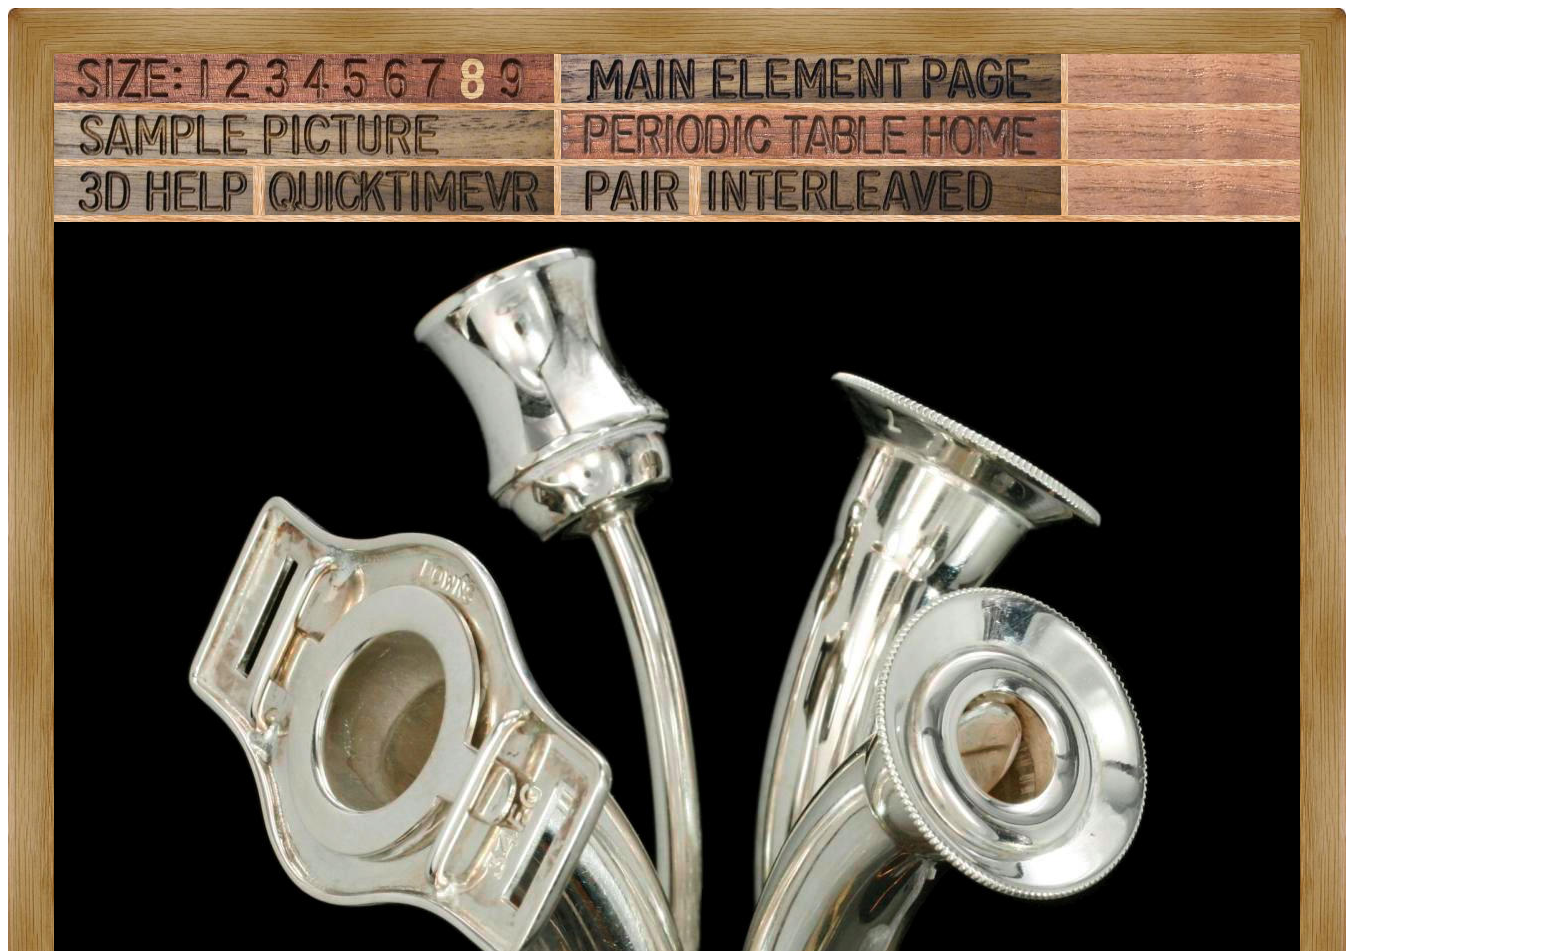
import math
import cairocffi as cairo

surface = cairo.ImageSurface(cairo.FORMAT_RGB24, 1545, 951)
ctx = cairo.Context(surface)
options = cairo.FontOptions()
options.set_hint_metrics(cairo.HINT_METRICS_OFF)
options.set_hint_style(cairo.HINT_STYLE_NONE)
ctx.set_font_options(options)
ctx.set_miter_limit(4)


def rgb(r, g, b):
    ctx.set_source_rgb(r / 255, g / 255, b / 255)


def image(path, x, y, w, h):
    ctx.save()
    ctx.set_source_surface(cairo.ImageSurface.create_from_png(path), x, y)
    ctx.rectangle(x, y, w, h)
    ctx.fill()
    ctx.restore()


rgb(255, 255, 255)
ctx.paint()
image('image0.png', 8, 8, 46, 46)
image('image1.png', 54, 8, 1246, 46)
image('image2.png', 1300, 8, 46, 46)
image('image3.png', 8, 54, 46, 897)
image('image4.png', 54, 54, 500, 49)
image('image5.png', 554, 54, 7, 49)
image('image6.png', 561, 54, 500, 49)
image('image5.png', 1061, 54, 7, 49)
image('image7.png', 1068, 54, 232, 49)
image('image8.png', 54, 103, 1246, 7)
image('image9.png', 54, 110, 500, 49)
image('image5.png', 554, 110, 7, 49)
image('image10.png', 561, 110, 500, 49)
image('image5.png', 1061, 110, 7, 49)
image('image7.png', 1068, 110, 232, 49)
image('image8.png', 54, 159, 1246, 7)
image('image11.png', 54, 166, 500, 49)
image('image5.png', 554, 166, 7, 49)
image('image12.png', 561, 166, 500, 49)
image('image5.png', 1061, 166, 7, 49)
image('image7.png', 1068, 166, 232, 49)
image('image8.png', 54, 215, 1246, 7)
image('image13.png', 54, 222, 1246, 729)
image('image14.png', 1300, 54, 46, 897)
surface.write_to_png('render.png')
